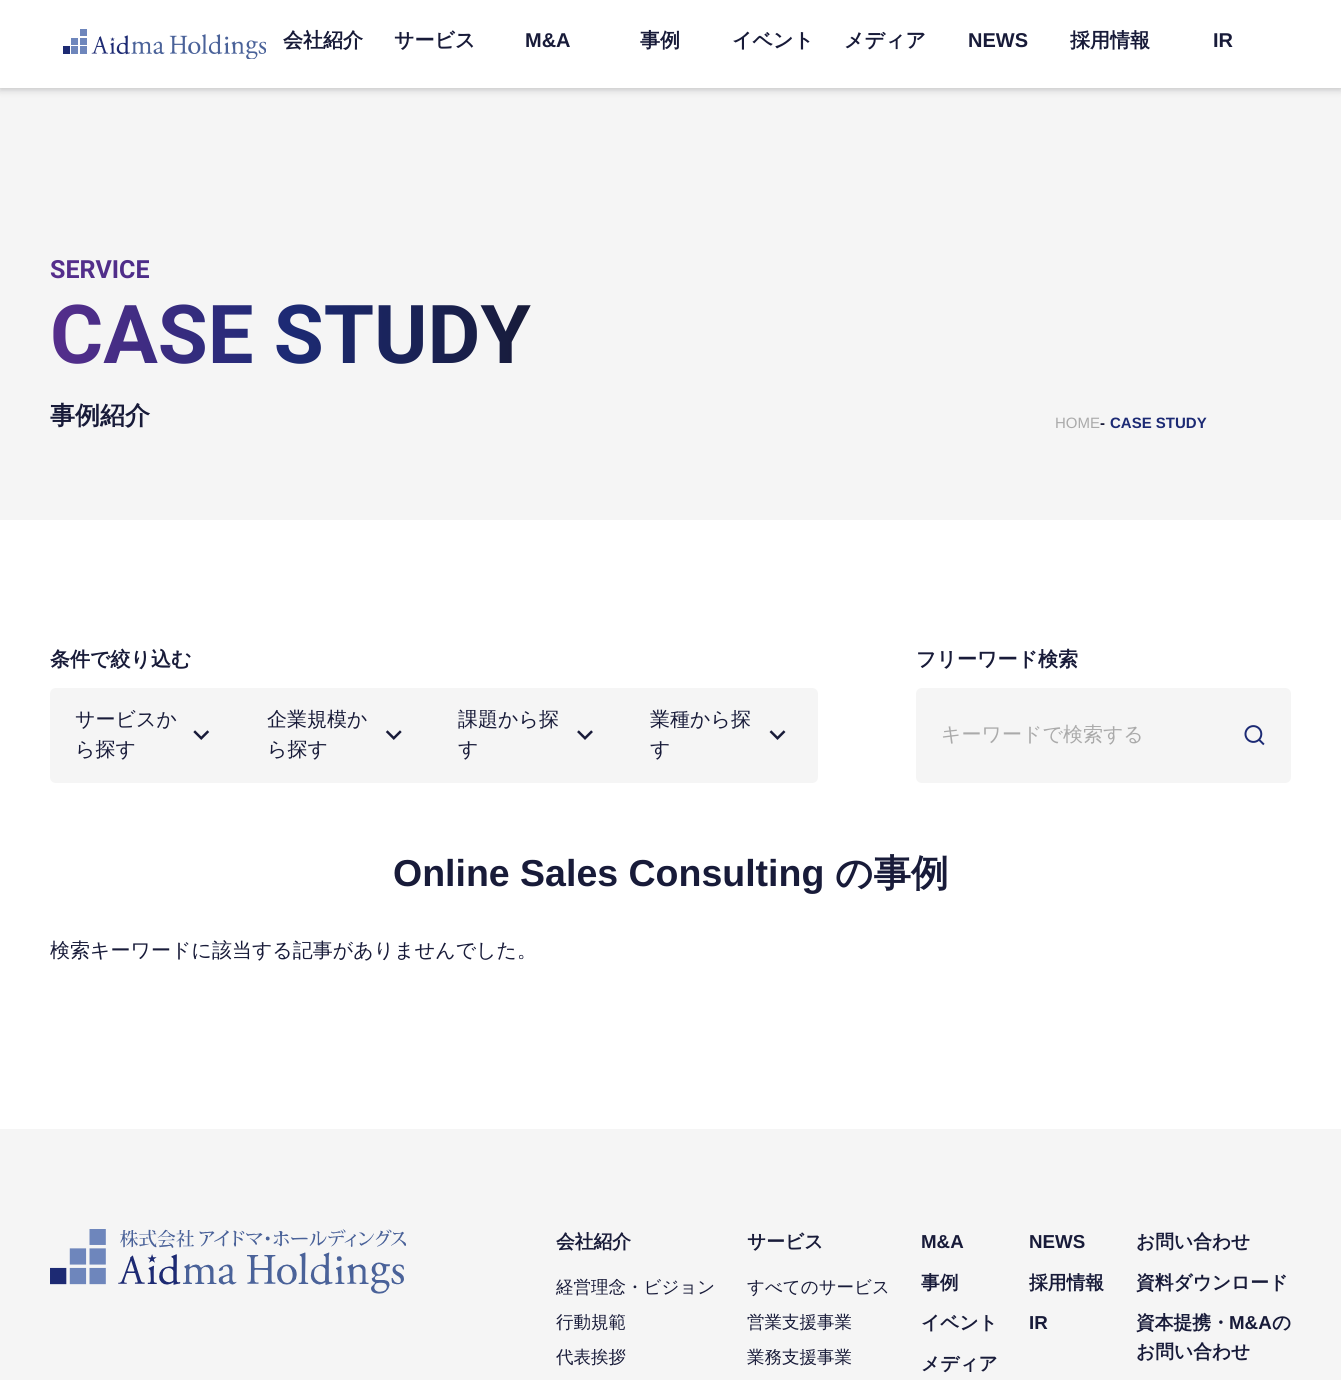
import math
import cairocffi as cairo

surface = cairo.ImageSurface(cairo.FORMAT_RGB24, 1341, 1380)
ctx = cairo.Context(surface)
options = cairo.FontOptions()
options.set_hint_metrics(cairo.HINT_METRICS_OFF)
options.set_hint_style(cairo.HINT_STYLE_NONE)
ctx.set_font_options(options)
ctx.set_miter_limit(4)


def rgb(r, g, b):
    ctx.set_source_rgb(r / 255, g / 255, b / 255)


def face(family, size, italic, bold):
    ctx.select_font_face(family, cairo.FONT_SLANT_ITALIC if italic else cairo.FONT_SLANT_NORMAL, cairo.FONT_WEIGHT_BOLD if bold else cairo.FONT_WEIGHT_NORMAL)
    ctx.set_font_size(size)


def label(x, y, s):
    ctx.move_to(x, y)
    ctx.show_text(s)


def rect(x, y, w, h):
    ctx.rectangle(x, y, w, h)
    ctx.fill()


def rrect(x, y, w, h, r):
    ctx.new_sub_path()
    for i, (u, v) in enumerate([(x + w - r, y + h - r), (x + r, y + h - r), (x + r, y + r), (x + w - r, y + r)]):
        ctx.arc(u, v, r, i * math.pi / 2, (i + 1) * math.pi / 2)
    ctx.close_path()


def soft_shadow(x, y, w, h, r, blur, alpha):
    ctx.push_group_with_content(cairo.CONTENT_ALPHA)
    ctx.set_operator(cairo.OPERATOR_SOURCE)
    for i in range(15, -16, -2):
        e = blur * i / 6
        if min(w, h) + 2 * e > 0:
            ctx.set_source_rgba(0, 0, 0, alpha * math.erfc((i - 1) / 8.5) / 2)
            rrect(x - e, y - e, w + 2 * e, h + 2 * e, max(0, min(r + e + blur * .6, min(w, h) / 2 + e)))
            ctx.fill()
    ctx.mask(ctx.pop_group())


def image(path, x, y, w, h):
    ctx.save()
    ctx.set_source_surface(cairo.ImageSurface.create_from_png(path), x, y)
    ctx.rectangle(x, y, w, h)
    ctx.fill()
    ctx.restore()


rgb(255, 255, 255)
ctx.paint()
rgb(245, 245, 245)
rect(0, 88, 1341, 432)
rgb(32, 33, 36)
soft_shadow(0, 1, 1341, 88, 0, 4, 0.28)
rgb(255, 255, 255)
rect(0, 0, 1341, 88)
image('image0.png', 63, 29, 203, 30)
face('WenQuanYi Zen Hei', 20, 0, 1)
rgb(24, 27, 57)
label(283, 47, '会社紹介')
label(394, 47, 'サービス')
face('Liberation Sans', 20, 0, 1)
label(525, 47, 'M&A')
face('WenQuanYi Zen Hei', 20, 0, 1)
label(640, 47, '事例')
label(732, 47, 'イベント')
label(844, 47, 'メディア')
face('Liberation Sans', 20, 0, 1)
label(968, 47, 'NEWS')
face('WenQuanYi Zen Hei', 20, 0, 1)
label(1070, 47, '採用情報')
face('Liberation Sans', 20, 0, 1)
label(1213, 47, 'IR')
face('Roboto', 25, 0, 1)
gradient = cairo.LinearGradient(50, 269, 1291, 269)
gradient.add_color_stop_rgba(0, 0.337, 0.18, 0.549, 1)
gradient.add_color_stop_rgba(0.5, 0.11, 0.165, 0.455, 1)
gradient.add_color_stop_rgba(1, 0.094, 0.106, 0.224, 1)
ctx.set_source(gradient)
label(50, 278, 'SERVICE')
face('Roboto', 81.25, 0, 1)
gradient = cairo.LinearGradient(50, 336, 531, 336)
gradient.add_color_stop_rgba(0, 0.337, 0.18, 0.549, 1)
gradient.add_color_stop_rgba(0.5, 0.11, 0.165, 0.455, 1)
gradient.add_color_stop_rgba(1, 0.094, 0.106, 0.224, 1)
ctx.set_source(gradient)
label(50, 363, 'CASE STUDY')
face('WenQuanYi Zen Hei', 25, 0, 1)
rgb(24, 27, 57)
label(50, 424, '事例紹介')
face('Liberation Sans', 15, 0, 0)
rgb(170, 170, 170)
label(1055, 428, 'HOME')
face('Liberation Sans', 15, 0, 1)
rgb(24, 27, 57)
label(1100, 428, '-')
rgb(28, 42, 116)
label(1110, 428, 'CASE STUDY')
face('WenQuanYi Zen Hei', 20, 0, 1)
rgb(24, 27, 57)
label(50, 666, '条件で絞り込む')
rgb(245, 245, 245)
ctx.new_path()
ctx.move_to(56, 688)
ctx.line_to(241, 688)
ctx.line_to(241, 783)
ctx.line_to(56, 783)
ctx.curve_to(52.5, 783, 50, 780.5, 50, 777)
ctx.line_to(50, 694)
ctx.curve_to(50, 690.5, 52.5, 688, 56, 688)
ctx.close_path()
ctx.fill()
face('WenQuanYi Zen Hei Medium', 20, 0, 0)
rgb(24, 27, 57)
label(75, 726, 'サービスか')
label(75, 756, 'ら探す')
image('image1.png', 193, 730, 17, 10)
rgb(245, 245, 245)
rect(241, 688, 384, 95)
rgb(24, 27, 57)
label(267, 726, '企業規模か')
label(267, 756, 'ら探す')
image('image2.png', 385, 730, 17, 10)
label(458, 726, '課題から探')
label(458, 756, 'す')
image('image3.png', 577, 730, 16, 10)
rgb(245, 245, 245)
ctx.new_path()
ctx.move_to(625, 688)
ctx.line_to(812, 688)
ctx.curve_to(815.5, 688, 818, 690.5, 818, 694)
ctx.line_to(818, 777)
ctx.curve_to(818, 780.5, 815.5, 783, 812, 783)
ctx.line_to(625, 783)
ctx.close_path()
ctx.fill()
rgb(24, 27, 57)
label(650, 726, '業種から探')
label(650, 756, 'す')
image('image4.png', 769, 730, 17, 10)
face('WenQuanYi Zen Hei', 20, 0, 1)
label(916, 666, 'フリーワード検索')
rgb(245, 245, 245)
ctx.new_path()
ctx.move_to(922, 688)
ctx.line_to(1218, 688)
ctx.line_to(1218, 783)
ctx.line_to(922, 783)
ctx.curve_to(918.5, 783, 916, 780.5, 916, 777)
ctx.line_to(916, 694)
ctx.curve_to(916, 690.5, 918.5, 688, 922, 688)
ctx.close_path()
ctx.fill()
face('WenQuanYi Zen Hei Medium', 20, 0, 0)
rgb(170, 170, 170)
label(941, 741, 'キーワードで検索する')
rgb(245, 245, 245)
ctx.new_path()
ctx.move_to(1218, 688)
ctx.line_to(1285, 688)
ctx.curve_to(1288.5, 688, 1291, 690.5, 1291, 694)
ctx.line_to(1291, 777)
ctx.curve_to(1291, 780.5, 1288.5, 783, 1285, 783)
ctx.line_to(1218, 783)
ctx.close_path()
ctx.fill()
image('image5.png', 1244, 725, 21, 21)
face('Liberation Sans', 37.5, 0, 1)
rgb(24, 27, 57)
label(393, 886, 'Online Sales Consulting')
face('WenQuanYi Zen Hei', 37.5, 0, 1)
label(835, 886, 'の事例')
face('WenQuanYi Zen Hei Medium', 20, 0, 0)
label(50, 957, '検索キーワードに該当する記事がありませんでした。')
rgb(245, 245, 245)
rect(0, 1129, 1341, 251)
image('image6.png', 50, 1229, 356, 65)
face('WenQuanYi Zen Hei', 18.75, 0, 1)
rgb(24, 27, 57)
label(556, 1248, '会社紹介')
face('WenQuanYi Zen Hei Medium', 17.5, 0, 0)
label(556, 1293, '経営理念・ビジョン')
label(556, 1328, '行動規範')
label(556, 1363, '代表挨拶')
face('WenQuanYi Zen Hei', 18.75, 0, 1)
label(747, 1248, 'サービス')
face('WenQuanYi Zen Hei Medium', 17.5, 0, 0)
label(747, 1293, 'すべてのサービス')
label(747, 1328, '営業支援事業')
label(747, 1363, '業務支援事業')
face('Liberation Sans', 18.75, 0, 1)
label(921, 1248, 'M&A')
face('WenQuanYi Zen Hei', 18.75, 0, 1)
label(921, 1289, '事例')
label(921, 1329, 'イベント')
label(921, 1370, 'メディア')
face('Liberation Sans', 18.75, 0, 1)
label(1029, 1248, 'NEWS')
face('WenQuanYi Zen Hei', 18.75, 0, 1)
label(1029, 1289, '採用情報')
face('Liberation Sans', 18.75, 0, 1)
label(1029, 1329, 'IR')
face('WenQuanYi Zen Hei', 18.75, 0, 1)
label(1136, 1248, 'お問い合わせ')
label(1136, 1289, '資料ダウンロード')
label(1136, 1329, '資本提携・')
face('Liberation Sans', 18.75, 0, 1)
label(1229, 1329, 'M&A')
face('WenQuanYi Zen Hei', 18.75, 0, 1)
label(1272, 1329, 'の')
label(1136, 1358, 'お問い合わせ')
surface.write_to_png('render.png')
